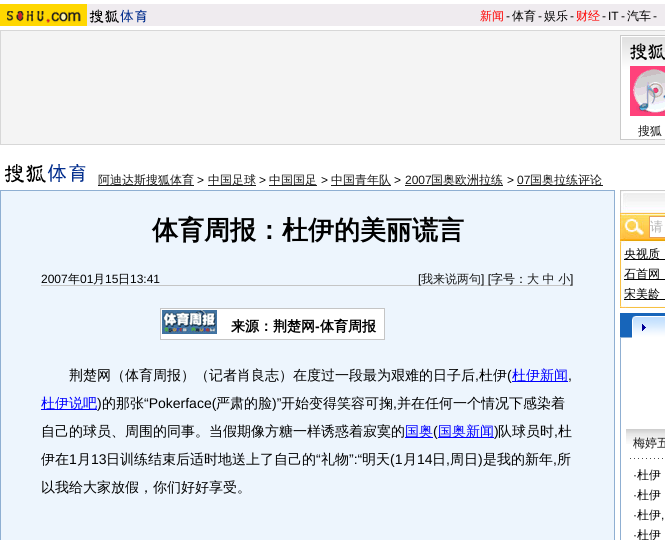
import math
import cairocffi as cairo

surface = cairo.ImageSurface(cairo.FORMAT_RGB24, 665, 540)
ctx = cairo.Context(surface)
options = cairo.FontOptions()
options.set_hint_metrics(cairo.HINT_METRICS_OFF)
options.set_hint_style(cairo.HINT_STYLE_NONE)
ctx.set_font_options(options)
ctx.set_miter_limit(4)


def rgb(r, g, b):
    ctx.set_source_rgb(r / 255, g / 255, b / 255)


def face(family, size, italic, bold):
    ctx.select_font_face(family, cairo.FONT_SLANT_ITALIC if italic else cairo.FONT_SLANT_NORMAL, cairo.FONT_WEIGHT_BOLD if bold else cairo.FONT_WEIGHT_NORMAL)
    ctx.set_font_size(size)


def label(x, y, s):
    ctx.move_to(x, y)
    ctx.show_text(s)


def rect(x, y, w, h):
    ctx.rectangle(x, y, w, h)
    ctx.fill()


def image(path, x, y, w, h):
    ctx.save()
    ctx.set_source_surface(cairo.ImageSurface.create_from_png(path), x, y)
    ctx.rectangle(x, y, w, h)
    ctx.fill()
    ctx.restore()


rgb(255, 255, 255)
ctx.paint()
rgb(239, 235, 239)
rect(87, 4, 578, 22)
image('image0.png', 0, 4, 87, 22)
image('image1.png', 89, 9, 58, 14)
face('WenQuanYi Zen Hei Medium', 12, 0, 0)
rgb(255, 0, 0)
label(480, 20, '新闻')
face('Liberation Sans', 12, 0, 0)
rgb(0, 0, 0)
label(506, 20, '-')
face('WenQuanYi Zen Hei Medium', 12, 0, 0)
label(512, 20, '体育')
face('Liberation Sans', 12, 0, 0)
label(538, 20, '-')
face('WenQuanYi Zen Hei Medium', 12, 0, 0)
label(544, 20, '娱乐')
face('Liberation Sans', 12, 0, 0)
label(570, 20, '-')
face('WenQuanYi Zen Hei Medium', 12, 0, 0)
rgb(255, 0, 0)
label(576, 20, '财经')
face('Liberation Sans', 12, 0, 0)
rgb(0, 0, 0)
label(602, 20, '-')
label(608, 20, 'IT')
label(621, 20, '-')
face('WenQuanYi Zen Hei Medium', 12, 0, 0)
label(627, 20, '汽车')
face('Liberation Sans', 12, 0, 0)
label(653, 20, '-')
rgb(244, 244, 244)
ctx.rectangle(0.5, 30.5, 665, 114)
ctx.fill_preserve()
rgb(215, 215, 215)
ctx.set_line_width(1)
ctx.stroke()
image('image2.png', 620, 35, 45, 105)
image('image3.png', 630, 43, 35, 17)
image('image4.png', 630, 66, 35, 50)
face('WenQuanYi Zen Hei Medium', 12, 0, 0)
rgb(25, 25, 25)
label(638, 135, '搜狐')
image('image5.png', 4, 164, 82, 19)
rect(98, 185, 96, 1)
label(98, 184, '阿迪达斯搜狐体育')
face('Liberation Sans', 12, 0, 0)
rgb(0, 0, 0)
label(197, 184, '>')
rgb(25, 25, 25)
rect(208, 185, 48, 1)
face('WenQuanYi Zen Hei Medium', 12, 0, 0)
label(208, 184, '中国足球')
face('Liberation Sans', 12, 0, 0)
rgb(0, 0, 0)
label(259, 184, '>')
rgb(25, 25, 25)
rect(269, 185, 48, 1)
face('WenQuanYi Zen Hei Medium', 12, 0, 0)
label(269, 184, '中国国足')
face('Liberation Sans', 12, 0, 0)
rgb(0, 0, 0)
label(321, 184, '>')
rgb(25, 25, 25)
rect(331, 185, 60, 1)
face('WenQuanYi Zen Hei Medium', 12, 0, 0)
label(331, 184, '中国青年队')
face('Liberation Sans', 12, 0, 0)
rgb(0, 0, 0)
label(394, 184, '>')
rgb(25, 25, 25)
label(405, 184, '2007')
rect(405, 185, 98, 1)
face('WenQuanYi Zen Hei Medium', 12, 0, 0)
label(431, 184, '国奥欧洲拉练')
face('Liberation Sans', 12, 0, 0)
rgb(0, 0, 0)
label(507, 184, '>')
rgb(25, 25, 25)
label(517, 184, '07')
rect(517, 185, 86, 1)
face('WenQuanYi Zen Hei Medium', 12, 0, 0)
label(530, 184, '国奥拉练评论')
rgb(237, 245, 253)
ctx.rectangle(0.5, 190.5, 614, 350)
ctx.fill_preserve()
rgb(143, 175, 210)
ctx.stroke()
face('WenQuanYi Zen Hei', 26, 0, 1)
rgb(0, 0, 0)
label(152, 239, '体育周报：杜伊的美丽谎言')
rgb(197, 197, 197)
rect(41, 285, 532, 1)
face('Liberation Sans', 12, 0, 0)
rgb(0, 0, 0)
label(41, 283, '2007')
face('WenQuanYi Zen Hei Medium', 12, 0, 0)
label(68, 283, '年')
face('Liberation Sans', 12, 0, 0)
label(80, 283, '01')
face('WenQuanYi Zen Hei Medium', 12, 0, 0)
label(93, 283, '月')
face('Liberation Sans', 12, 0, 0)
label(105, 283, '15')
face('WenQuanYi Zen Hei Medium', 12, 0, 0)
label(118, 283, '日')
face('Liberation Sans', 12, 0, 0)
label(130, 283, '13:41')
label(418, 283, '[')
face('WenQuanYi Zen Hei Medium', 12, 0, 0)
rgb(25, 25, 25)
label(421, 283, '我来说两句')
face('Liberation Sans', 12, 0, 0)
rgb(0, 0, 0)
label(481, 283, '] [')
face('WenQuanYi Zen Hei Medium', 12, 0, 0)
label(491, 283, '字号：')
rgb(25, 25, 25)
label(527, 283, '大 中 小')
face('Liberation Sans', 12, 0, 0)
rgb(0, 0, 0)
label(570, 283, ']')
rgb(255, 255, 255)
ctx.rectangle(160.5, 308.5, 224, 31)
ctx.fill_preserve()
rgb(197, 197, 197)
ctx.stroke()
image('image6.png', 162, 310, 55, 24)
face('WenQuanYi Zen Hei', 14, 0, 1)
rgb(0, 0, 0)
label(231, 331, '来源：荆楚网')
face('Liberation Sans', 14, 0, 1)
label(315, 331, '-')
face('WenQuanYi Zen Hei', 14, 0, 1)
label(320, 331, '体育周报')
face('WenQuanYi Zen Hei Medium', 14, 0, 0)
label(69, 380, '荆楚网（体育周报）（记者肖良志）在度过一段最为艰难的日子后')
face('Liberation Sans', 14, 0, 0)
label(475, 380, ',')
face('WenQuanYi Zen Hei Medium', 14, 0, 0)
label(479, 380, '杜伊')
face('Liberation Sans', 14, 0, 0)
label(507, 380, '(')
rgb(0, 0, 255)
rect(512, 381, 56, 1)
face('WenQuanYi Zen Hei Medium', 14, 0, 0)
label(512, 380, '杜伊新闻')
face('Liberation Sans', 14, 0, 0)
rgb(0, 0, 0)
label(568, 380, ',')
rgb(0, 0, 255)
rect(41, 409, 56, 1)
face('WenQuanYi Zen Hei Medium', 14, 0, 0)
label(41, 408, '杜伊说吧')
face('Liberation Sans', 14, 0, 0)
rgb(0, 0, 0)
label(97, 408, ')')
face('WenQuanYi Zen Hei Medium', 14, 0, 0)
label(102, 408, '的那张')
face('Liberation Sans', 14, 0, 0)
label(144, 408, '“Pokerface(')
face('WenQuanYi Zen Hei Medium', 14, 0, 0)
label(216, 408, '严肃的脸')
face('Liberation Sans', 14, 0, 0)
label(272, 408, ')”')
face('WenQuanYi Zen Hei Medium', 14, 0, 0)
label(281, 408, '开始变得笑容可掬')
face('Liberation Sans', 14, 0, 0)
label(393, 408, ',')
face('WenQuanYi Zen Hei Medium', 14, 0, 0)
label(397, 408, '并在任何一个情况下感染着')
label(41, 436, '自己的球员、周围的同事。当假期像方糖一样诱惑着寂寞的')
rgb(0, 0, 255)
rect(405, 437, 28, 1)
label(405, 436, '国奥')
face('Liberation Sans', 14, 0, 0)
rgb(0, 0, 0)
label(433, 436, '(')
rgb(0, 0, 255)
rect(438, 437, 56, 1)
face('WenQuanYi Zen Hei Medium', 14, 0, 0)
label(438, 436, '国奥新闻')
face('Liberation Sans', 14, 0, 0)
rgb(0, 0, 0)
label(494, 436, ')')
face('WenQuanYi Zen Hei Medium', 14, 0, 0)
label(498, 436, '队球员时')
face('Liberation Sans', 14, 0, 0)
label(554, 436, ',')
face('WenQuanYi Zen Hei Medium', 14, 0, 0)
label(558, 436, '杜')
label(41, 464, '伊在')
face('Liberation Sans', 14, 0, 0)
label(69, 464, '1')
face('WenQuanYi Zen Hei Medium', 14, 0, 0)
label(77, 464, '月')
face('Liberation Sans', 14, 0, 0)
label(91, 464, '13')
face('WenQuanYi Zen Hei Medium', 14, 0, 0)
label(106, 464, '日训练结束后适时地送上了自己的')
face('Liberation Sans', 14, 0, 0)
label(316, 464, '“')
face('WenQuanYi Zen Hei Medium', 14, 0, 0)
label(321, 464, '礼物')
face('Liberation Sans', 14, 0, 0)
label(349, 464, '”:“')
face('WenQuanYi Zen Hei Medium', 14, 0, 0)
label(362, 464, '明天')
face('Liberation Sans', 14, 0, 0)
label(390, 464, '(1')
face('WenQuanYi Zen Hei Medium', 14, 0, 0)
label(403, 464, '月')
face('Liberation Sans', 14, 0, 0)
label(417, 464, '14')
face('WenQuanYi Zen Hei Medium', 14, 0, 0)
label(432, 464, '日')
face('Liberation Sans', 14, 0, 0)
label(446, 464, ',')
face('WenQuanYi Zen Hei Medium', 14, 0, 0)
label(450, 464, '周日')
face('Liberation Sans', 14, 0, 0)
label(478, 464, ')')
face('WenQuanYi Zen Hei Medium', 14, 0, 0)
label(483, 464, '是我的新年')
face('Liberation Sans', 14, 0, 0)
label(553, 464, ',')
face('WenQuanYi Zen Hei Medium', 14, 0, 0)
label(557, 464, '所')
label(41, 492, '以我给大家放假，你们好好享受。')
image('image7.png', 620, 190, 45, 118)
rgb(255, 255, 255)
ctx.rectangle(649.5, 216.5, 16, 21)
ctx.fill_preserve()
rgb(232, 159, 87)
ctx.stroke()
face('WenQuanYi Zen Hei Medium', 13, 0, 0)
rgb(179, 179, 179)
label(650, 231, '请')
rgb(0, 0, 0)
rect(624, 259, 41, 1)
face('WenQuanYi Zen Hei Medium', 12, 0, 0)
label(624, 258, '央视质')
rect(624, 279, 41, 1)
label(624, 278, '石首网')
rect(624, 299, 41, 1)
label(624, 298, '宋美龄')
image('image8.png', 620, 313, 45, 25)
rgb(143, 175, 210)
rect(620, 338, 1, 202)
image('image9.png', 626, 429, 39, 15)
rgb(25, 25, 25)
label(633, 447, '梅婷五')
image('image10.png', 630, 458, 33, 1)
face('Liberation Sans', 12, 0, 0)
rgb(0, 0, 0)
label(633, 479, '·')
face('WenQuanYi Zen Hei Medium', 12, 0, 0)
label(637, 479, '杜伊')
face('Liberation Sans', 12, 0, 0)
label(633, 499, '·')
face('WenQuanYi Zen Hei Medium', 12, 0, 0)
label(637, 499, '杜伊')
face('Liberation Sans', 12, 0, 0)
label(633, 519, '·')
face('WenQuanYi Zen Hei Medium', 12, 0, 0)
label(637, 519, '杜伊')
face('Liberation Sans', 12, 0, 0)
label(661, 519, ',')
label(633, 539, '·')
face('WenQuanYi Zen Hei Medium', 12, 0, 0)
label(637, 539, '杜伊')
surface.write_to_png('render.png')
